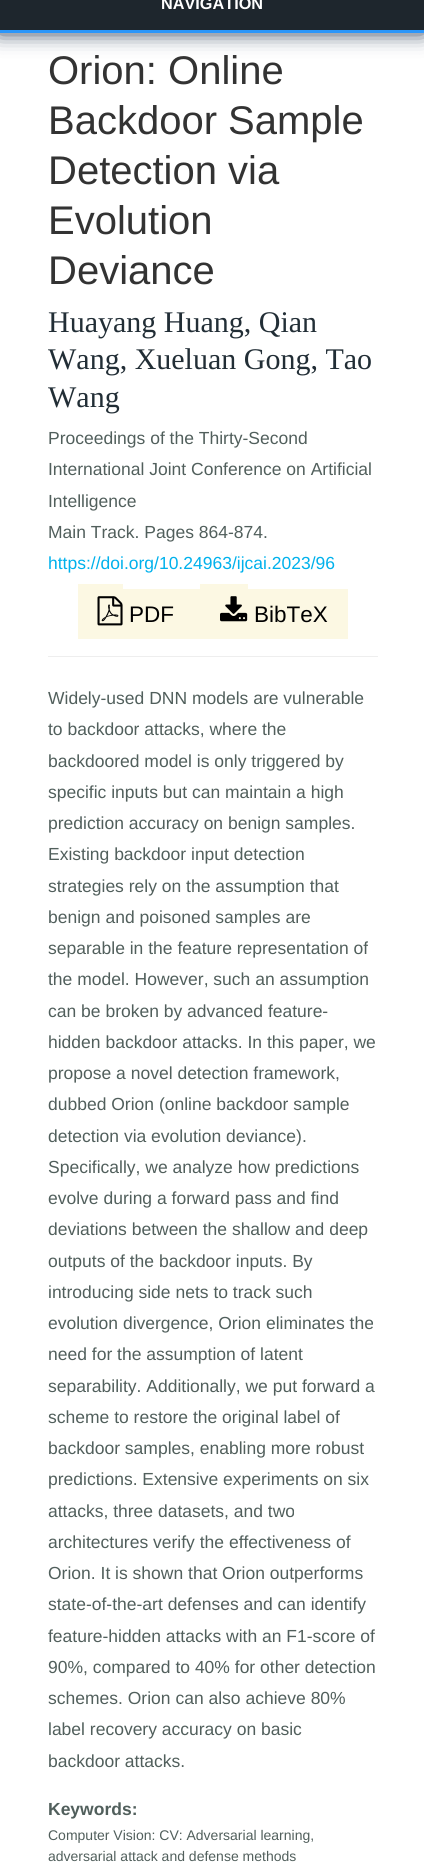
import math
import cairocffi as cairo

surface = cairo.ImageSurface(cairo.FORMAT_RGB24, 424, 1870)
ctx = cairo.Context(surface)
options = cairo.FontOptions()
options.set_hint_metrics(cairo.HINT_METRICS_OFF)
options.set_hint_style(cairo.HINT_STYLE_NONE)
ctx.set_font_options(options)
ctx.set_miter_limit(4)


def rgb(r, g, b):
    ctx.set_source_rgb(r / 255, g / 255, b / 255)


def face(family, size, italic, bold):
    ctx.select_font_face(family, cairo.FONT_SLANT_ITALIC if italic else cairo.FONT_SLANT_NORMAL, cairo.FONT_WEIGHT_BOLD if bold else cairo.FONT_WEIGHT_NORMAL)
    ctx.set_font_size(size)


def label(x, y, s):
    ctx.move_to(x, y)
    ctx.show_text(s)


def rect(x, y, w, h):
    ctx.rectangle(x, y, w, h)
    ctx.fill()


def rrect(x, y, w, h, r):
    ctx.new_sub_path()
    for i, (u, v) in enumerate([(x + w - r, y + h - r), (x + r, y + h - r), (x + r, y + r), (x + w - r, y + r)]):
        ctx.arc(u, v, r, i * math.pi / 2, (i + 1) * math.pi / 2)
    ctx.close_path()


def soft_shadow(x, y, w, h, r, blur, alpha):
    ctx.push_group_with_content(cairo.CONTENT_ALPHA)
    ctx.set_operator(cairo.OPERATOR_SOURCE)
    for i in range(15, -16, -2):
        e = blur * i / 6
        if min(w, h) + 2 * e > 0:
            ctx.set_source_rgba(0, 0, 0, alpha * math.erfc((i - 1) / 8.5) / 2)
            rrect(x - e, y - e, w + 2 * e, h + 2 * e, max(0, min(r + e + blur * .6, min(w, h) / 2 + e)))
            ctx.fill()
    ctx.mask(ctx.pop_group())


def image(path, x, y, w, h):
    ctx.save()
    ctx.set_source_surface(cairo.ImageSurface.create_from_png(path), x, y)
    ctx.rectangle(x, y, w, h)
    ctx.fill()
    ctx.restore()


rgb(255, 255, 255)
ctx.paint()
rgb(2, 23, 54)
soft_shadow(-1, -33, 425, 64, 0, 11, 1)
rgb(43, 150, 250)
rect(0, 30, 424, 3)
rgb(30, 38, 45)
rect(0, 0, 424, 30)
face('Liberation Sans', 16.25, 0, 1)
rgb(255, 255, 255)
label(161, 9, 'NAVIGATION')
face('Liberation Sans', 40, 0, 0)
rgb(51, 51, 51)
label(48, 84, 'Orion: Online')
label(48, 134, 'Backdoor Sample')
label(48, 184, 'Detection via')
label(48, 234, 'Evolution')
label(48, 284, 'Deviance')
face('Liberation Serif', 30, 0, 0)
rgb(34, 46, 54)
label(48, 332, 'Huayang Huang, Qian')
label(48, 369, 'Wang, Xueluan Gong, Tao')
label(48, 407, 'Wang')
face('Liberation Sans', 17.5, 0, 0)
rgb(81, 95, 92)
label(48, 444, 'Proceedings of the Thirty-Second')
label(48, 475, 'International Joint Conference on Artificial')
label(48, 507, 'Intelligence')
label(48, 538, 'Main Track. Pages 864-874.')
rgb(0, 177, 236)
label(48, 569, 'https://doi.org/10.24963/ijcai.2023/96')
rgb(252, 248, 227)
rect(78, 584, 45, 55)
rect(123, 589, 77, 50)
image('image0.png', 97, 596, 26, 30)
face('Liberation Sans', 22.5, 0, 0)
rgb(0, 0, 0)
label(129, 622, 'PDF')
rgb(252, 248, 227)
rect(200, 584, 48, 55)
rect(248, 589, 100, 50)
image('image1.png', 220, 596, 28, 26)
rgb(0, 0, 0)
label(254, 622, 'BibTeX')
rgb(238, 238, 238)
rect(48, 656, 330, 1)
face('Liberation Sans', 17.5, 0, 0)
rgb(81, 95, 92)
label(48, 704, 'Widely-used DNN models are vulnerable')
label(48, 735, 'to backdoor attacks, where the')
label(48, 767, 'backdoored model is only triggered by')
label(48, 798, 'specific inputs but can maintain a high')
label(48, 829, 'prediction accuracy on benign samples.')
label(48, 860, 'Existing backdoor input detection')
label(48, 892, 'strategies rely on the assumption that')
label(48, 923, 'benign and poisoned samples are')
label(48, 954, 'separable in the feature representation of')
label(48, 985, 'the model. However, such an assumption')
label(48, 1017, 'can be broken by advanced feature-')
label(48, 1048, 'hidden backdoor attacks. In this paper, we')
label(48, 1079, 'propose a novel detection framework,')
label(48, 1110, 'dubbed Orion (online backdoor sample')
label(48, 1142, 'detection via evolution deviance).')
label(48, 1173, 'Specifically, we analyze how predictions')
label(48, 1204, 'evolve during a forward pass and find')
label(48, 1235, 'deviations between the shallow and deep')
label(48, 1267, 'outputs of the backdoor inputs. By')
label(48, 1298, 'introducing side nets to track such')
label(48, 1329, 'evolution divergence, Orion eliminates the')
label(48, 1360, 'need for the assumption of latent')
label(48, 1392, 'separability. Additionally, we put forward a')
label(48, 1423, 'scheme to restore the original label of')
label(48, 1454, 'backdoor samples, enabling more robust')
label(48, 1485, 'predictions. Extensive experiments on six')
label(48, 1517, 'attacks, three datasets, and two')
label(48, 1548, 'architectures verify the effectiveness of')
label(48, 1579, 'Orion. It is shown that Orion outperforms')
label(48, 1610, 'state-of-the-art defenses and can identify')
label(48, 1642, 'feature-hidden attacks with an F1-score of')
label(48, 1673, '90%, compared to 40% for other detection')
label(48, 1704, 'schemes. Orion can also achieve 80%')
label(48, 1735, 'label recovery accuracy on basic')
label(48, 1767, 'backdoor attacks.')
face('Liberation Sans', 17.5, 0, 1)
label(48, 1815, 'Keywords:')
face('Liberation Sans', 14, 0, 0)
label(48, 1840, 'Computer Vision: CV: Adversarial learning,')
label(48, 1861, 'adversarial attack and defense methods')
surface.write_to_png('render.png')
